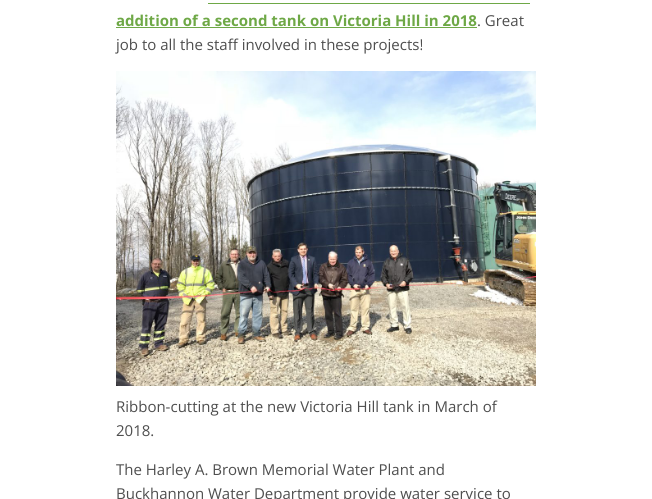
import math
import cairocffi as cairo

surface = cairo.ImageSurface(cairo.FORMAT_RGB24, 652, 499)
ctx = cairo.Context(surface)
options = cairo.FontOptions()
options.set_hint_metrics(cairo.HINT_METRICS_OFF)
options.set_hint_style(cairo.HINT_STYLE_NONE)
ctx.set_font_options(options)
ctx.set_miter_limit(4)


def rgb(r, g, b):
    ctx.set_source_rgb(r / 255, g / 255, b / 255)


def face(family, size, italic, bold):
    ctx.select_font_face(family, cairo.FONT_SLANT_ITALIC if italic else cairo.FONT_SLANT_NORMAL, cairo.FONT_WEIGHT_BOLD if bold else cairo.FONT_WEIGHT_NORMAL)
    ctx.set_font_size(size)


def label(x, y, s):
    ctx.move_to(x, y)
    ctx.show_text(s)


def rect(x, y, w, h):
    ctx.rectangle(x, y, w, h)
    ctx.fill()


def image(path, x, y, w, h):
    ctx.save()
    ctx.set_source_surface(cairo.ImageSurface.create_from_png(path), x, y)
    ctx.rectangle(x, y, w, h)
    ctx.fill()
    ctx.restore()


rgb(255, 255, 255)
ctx.paint()
face('Open Sans', 15, 0, 1)
rgb(110, 168, 70)
label(116, 26, 'addition of a second tank on Victoria Hill in 2018')
rect(208, 3, 322, 1)
rect(116, 27, 361, 1)
face('Open Sans', 15, 0, 0)
rgb(78, 78, 78)
label(477, 26, '. Great')
label(116, 50, 'job to all the staff involved in these projects!')
image('image0.png', 116, 71, 420, 315)
label(116, 412, 'Ribbon-cutting at the new Victoria Hill tank in March of')
label(116, 436, '2018.')
label(116, 475, 'The Harley A. Brown Memorial Water Plant and')
label(116, 499, 'Buckhannon Water Department provide water service to')
surface.write_to_png('render.png')
